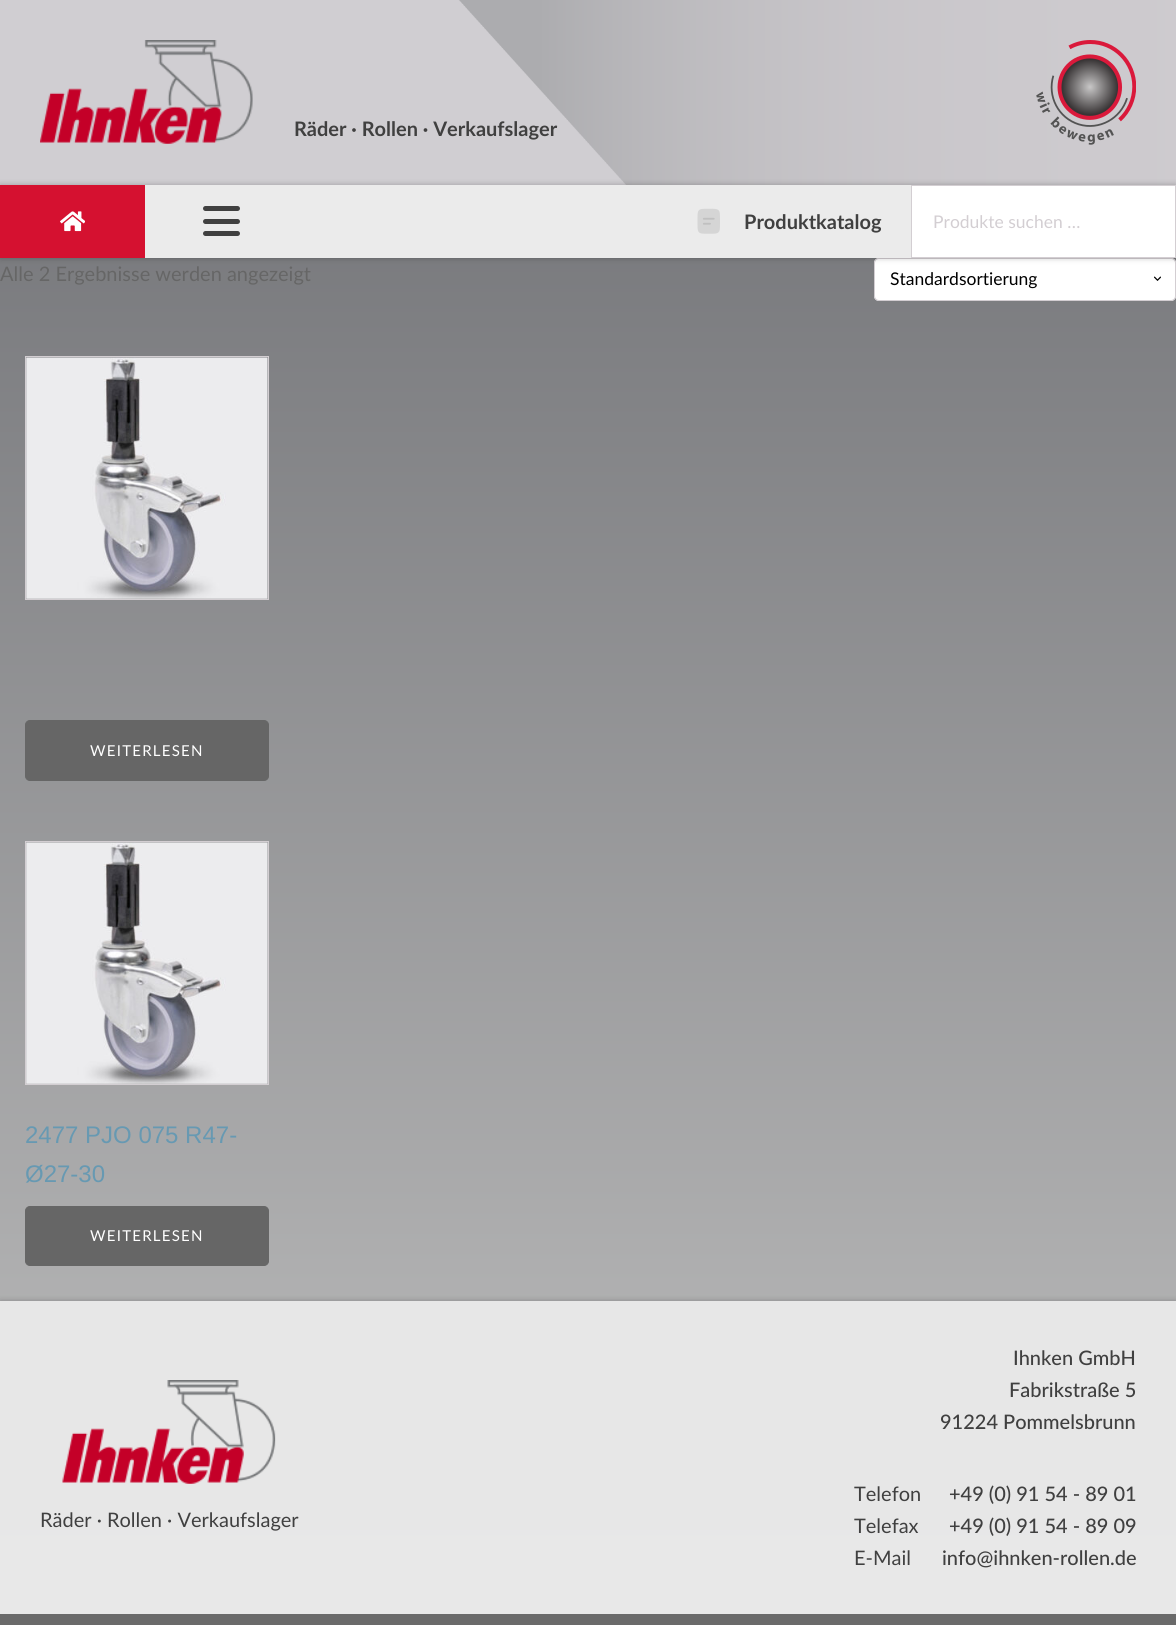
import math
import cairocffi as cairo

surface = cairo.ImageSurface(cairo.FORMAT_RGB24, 1176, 1625)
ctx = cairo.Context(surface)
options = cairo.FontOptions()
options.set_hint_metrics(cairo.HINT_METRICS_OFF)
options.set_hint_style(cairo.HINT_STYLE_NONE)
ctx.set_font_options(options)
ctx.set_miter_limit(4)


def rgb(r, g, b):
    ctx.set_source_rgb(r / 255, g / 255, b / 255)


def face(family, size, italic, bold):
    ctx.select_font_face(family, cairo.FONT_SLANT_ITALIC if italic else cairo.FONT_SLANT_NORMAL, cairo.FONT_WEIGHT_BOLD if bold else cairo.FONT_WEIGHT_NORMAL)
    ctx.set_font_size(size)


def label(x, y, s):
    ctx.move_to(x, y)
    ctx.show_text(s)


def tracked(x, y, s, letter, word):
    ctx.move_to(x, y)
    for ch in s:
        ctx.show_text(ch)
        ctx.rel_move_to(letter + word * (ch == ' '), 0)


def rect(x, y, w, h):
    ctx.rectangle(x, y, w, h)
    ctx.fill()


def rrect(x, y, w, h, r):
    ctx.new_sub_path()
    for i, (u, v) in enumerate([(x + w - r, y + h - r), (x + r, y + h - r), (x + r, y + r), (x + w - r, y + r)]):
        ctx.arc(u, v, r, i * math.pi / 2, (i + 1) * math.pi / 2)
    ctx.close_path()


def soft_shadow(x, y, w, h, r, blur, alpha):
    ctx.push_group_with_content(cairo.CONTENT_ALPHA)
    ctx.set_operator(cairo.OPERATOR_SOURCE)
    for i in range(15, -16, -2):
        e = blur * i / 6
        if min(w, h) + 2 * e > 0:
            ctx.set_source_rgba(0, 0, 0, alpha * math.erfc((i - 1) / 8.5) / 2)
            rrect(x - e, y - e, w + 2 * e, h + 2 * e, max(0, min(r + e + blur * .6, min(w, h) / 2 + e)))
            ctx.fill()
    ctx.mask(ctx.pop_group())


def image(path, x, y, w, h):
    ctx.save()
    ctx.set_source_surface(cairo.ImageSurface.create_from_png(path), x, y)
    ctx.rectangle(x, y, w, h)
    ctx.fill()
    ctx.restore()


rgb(255, 255, 255)
ctx.paint()
gradient = cairo.LinearGradient(588, 0, 588, 1625)
gradient.add_color_stop_rgba(0, 0.431, 0.435, 0.451, 1)
gradient.add_color_stop_rgba(1, 0.753, 0.753, 0.753, 1)
ctx.set_source(gradient)
rect(0, 258, 1176, 1356)
image('image0.png', 0, 0, 1176, 185)
image('image1.png', 40, 40, 213, 104)
face('Lato', 20, 0, 1)
rgb(64, 64, 64)
label(294, 136, 'Räder · Rollen · Verkaufslager')
image('image2.png', 1036, 40, 100, 105)
rgb(255, 255, 255)
rrect(874, 258, 302, 43, 5)
ctx.fill()
image('image5.png', 1154, 276, 7, 5)
rrect(874.5, 258.5, 301, 42, 4.5)
rgb(211, 206, 210)
ctx.set_line_width(1)
ctx.stroke()
rgb(0, 0, 0)
soft_shadow(0, 185, 1176, 73, 0, 3, 0.25)
rgb(235, 235, 235)
rect(145, 185, 766, 73)
rgb(213, 17, 48)
rect(0, 185, 145, 73)
image('image3.png', 60, 211, 25, 21)
rgb(64, 64, 64)
rrect(203, 206, 37, 5, 2.5)
ctx.fill()
rrect(203, 219, 37, 5, 2.5)
ctx.fill()
rrect(203, 231, 37, 5, 2.5)
ctx.fill()
image('image4.png', 697, 208, 23, 26)
label(744, 229, 'Produktkatalog')
rgb(255, 255, 255)
ctx.rectangle(911.5, 185.5, 264, 72)
ctx.fill_preserve()
rgb(211, 206, 210)
ctx.stroke()
face('Lato', 17.5, 0, 0)
label(933, 228, 'Produkte suchen …')
face('Lato', 20, 0, 0)
rgb(102, 102, 102)
label(0, 281, 'Alle 2 Ergebnisse werden angezeigt')
face('Lato', 17.5, 0, 0)
rgb(0, 0, 0)
label(890, 285, 'Standardsortierung')
ctx.rectangle(25.5, 356.5, 243, 243)
rgb(211, 206, 210)
ctx.stroke()
image('image6.png', 26, 357, 242, 242)
rgb(102, 102, 102)
rrect(25.5, 720.5, 243, 60, 4.5)
ctx.fill_preserve()
ctx.stroke()
face('Lato', 15, 0, 0)
rgb(255, 255, 255)
tracked(90, 756, 'WEITERLESEN', 1.25, 0)
ctx.rectangle(25.5, 841.5, 243, 243)
rgb(211, 206, 210)
ctx.stroke()
image('image7.png', 26, 842, 242, 242)
face('Liberation Sans', 24, 0, 0)
rgb(103, 153, 178)
label(25, 1143, '2477 PJO 075 R47-')
label(25, 1182, 'Ø27-30')
rgb(102, 102, 102)
rrect(25.5, 1206.5, 243, 59, 4.5)
ctx.fill_preserve()
ctx.stroke()
face('Lato', 15, 0, 0)
rgb(255, 255, 255)
tracked(90, 1241, 'WEITERLESEN', 1.25, 0)
ctx.save()
ctx.set_fill_rule(cairo.FILL_RULE_EVEN_ODD)
ctx.new_path()
ctx.move_to(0, 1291)
ctx.line_to(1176, 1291)
ctx.line_to(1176, 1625)
ctx.line_to(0, 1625)
ctx.close_path()
ctx.move_to(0, 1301)
ctx.line_to(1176, 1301)
ctx.line_to(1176, 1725)
ctx.line_to(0, 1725)
ctx.close_path()
ctx.clip()
rgb(0, 0, 0)
soft_shadow(0, 1301, 1176, 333, 0, 3, 0.25)
ctx.restore()
ctx.set_source_rgba(0.922, 0.922, 0.922, 0.93)
rect(0, 1301, 1176, 313)
image('image8.png', 62, 1380, 214, 104)
face('Lato', 20, 0, 0)
rgb(64, 64, 64)
label(40, 1527, 'Räder · Rollen · Verkaufslager')
face('Lato Medium', 20, 0, 0)
label(1013, 1365, 'Ihnken GmbH')
label(1009, 1397, 'Fabrikstraße 5')
label(940, 1429, '91224 Pommelsbrunn')
face('Lato', 20, 0, 0)
label(854, 1501, 'Telefon')
label(854, 1533, 'Telefax')
label(854, 1565, 'E-Mail')
face('Lato Medium', 20, 0, 0)
label(949, 1501, '+49 (0) 91 54 - 89 01')
label(949, 1533, '+49 (0) 91 54 - 89 09')
label(942, 1565, 'info@ihnken-rollen.de')
rgb(106, 106, 106)
rect(0, 1614, 1176, 11)
surface.write_to_png('render.png')
